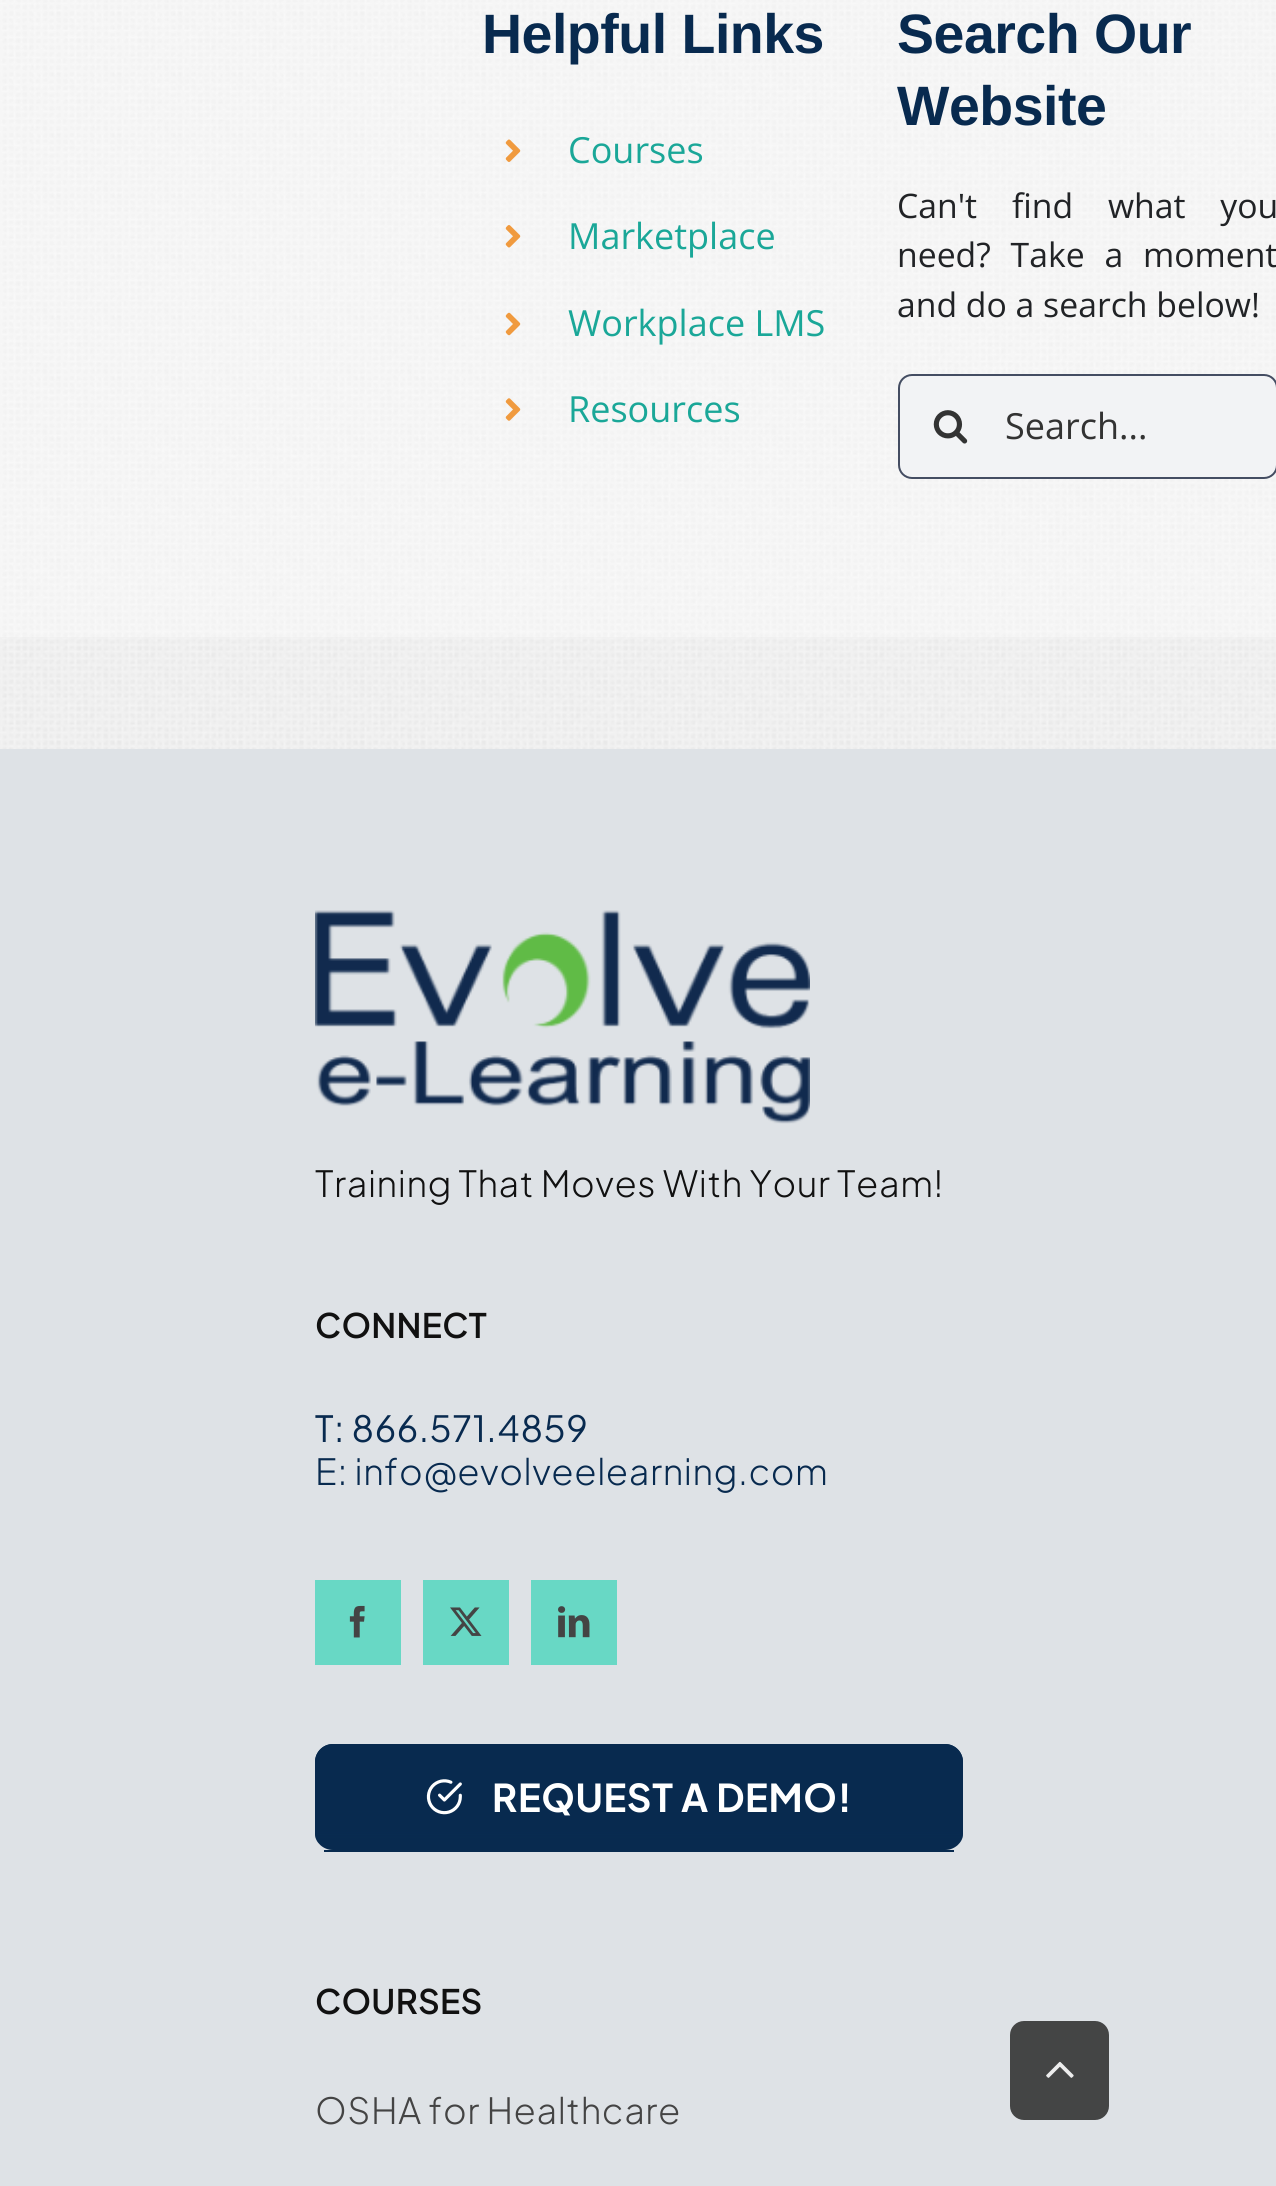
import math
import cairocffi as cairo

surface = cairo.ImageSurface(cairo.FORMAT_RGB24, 1276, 2186)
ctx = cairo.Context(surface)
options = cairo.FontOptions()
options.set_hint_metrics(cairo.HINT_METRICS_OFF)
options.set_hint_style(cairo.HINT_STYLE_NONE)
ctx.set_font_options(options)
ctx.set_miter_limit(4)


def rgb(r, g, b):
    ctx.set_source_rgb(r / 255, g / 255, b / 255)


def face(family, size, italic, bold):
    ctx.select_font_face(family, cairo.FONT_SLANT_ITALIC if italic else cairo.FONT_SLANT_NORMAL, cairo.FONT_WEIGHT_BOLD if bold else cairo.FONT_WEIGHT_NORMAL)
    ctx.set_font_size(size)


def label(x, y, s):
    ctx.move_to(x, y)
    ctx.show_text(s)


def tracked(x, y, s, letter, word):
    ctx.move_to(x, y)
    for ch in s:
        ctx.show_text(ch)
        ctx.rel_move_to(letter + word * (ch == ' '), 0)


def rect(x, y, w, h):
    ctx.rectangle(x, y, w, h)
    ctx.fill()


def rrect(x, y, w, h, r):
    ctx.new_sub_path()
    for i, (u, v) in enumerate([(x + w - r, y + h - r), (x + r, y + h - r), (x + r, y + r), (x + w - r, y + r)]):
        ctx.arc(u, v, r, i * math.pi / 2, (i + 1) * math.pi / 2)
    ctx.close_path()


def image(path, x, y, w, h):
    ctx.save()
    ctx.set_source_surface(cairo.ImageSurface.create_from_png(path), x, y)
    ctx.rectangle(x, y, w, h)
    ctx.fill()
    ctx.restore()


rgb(255, 255, 255)
ctx.paint()
image('image0.png', 0, 0, 1276, 749)
ctx.set_source_rgba(1, 1, 1, 0.38)
rect(0, 0, 1276, 637)
face('Liberation Sans', 55.5, 0, 1)
rgb(8, 42, 79)
tracked(482, 53, 'Helpful Links', -0.5, 0)
image('image1.png', 505, 139, 16, 23)
face('Open Sans', 36, 0, 0)
rgb(26, 167, 152)
label(568, 163, 'Courses')
image('image2.png', 505, 225, 16, 23)
label(568, 249, 'Marketplace')
image('image3.png', 505, 312, 16, 24)
label(568, 336, 'Workplace LMS')
image('image4.png', 505, 398, 16, 23)
label(568, 422, 'Resources')
face('Liberation Sans', 55.5, 0, 1)
rgb(8, 42, 79)
tracked(897, 53, 'Search Our', -0.5, 0)
tracked(897, 125, 'Website', -0.5, 0)
face('Open Sans', 33.75, 0, 0)
rgb(33, 35, 38)
tracked(897, 218, 'Can\'t find what you', 0, 26)
tracked(897, 267, 'need? Take a moment', 0, 11)
label(897, 317, 'and do a search below!')
rgb(242, 243, 245)
rrect(899, 375, 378, 103, 13)
ctx.fill_preserve()
rgb(68, 77, 98)
ctx.stroke()
image('image5.png', 933, 410, 35, 34)
face('Open Sans', 36, 0, 0)
rgb(51, 51, 51)
label(1005, 439, 'Search...')
rgb(222, 226, 230)
rect(0, 749, 1276, 1437)
image('image6.png', 315, 910, 495, 214)
face('Plus Jakarta Sans Light', 36, 0, 0)
rgb(17, 17, 17)
tracked(315, 1197, 'Training That Moves With Your Team!', 0.55, 0)
face('Plus Jakarta Sans SemiBold', 33.75, 0, 0)
tracked(315, 1338, 'CONNECT', 0.25, 0)
face('Plus Jakarta Sans', 36, 0, 0)
rgb(8, 42, 79)
tracked(315, 1442, 'T: 866.571.4859', 0.55, 0)
face('Plus Jakarta Sans Light', 36, 0, 0)
tracked(315, 1485, 'E: info@evolveelearning.com', 0.55, 0)
rgb(104, 216, 197)
rect(315, 1580, 86, 85)
image('image7.png', 349, 1605, 16, 33)
rect(423, 1580, 86, 85)
image('image8.png', 450, 1607, 32, 29)
rect(531, 1580, 86, 85)
image('image9.png', 558, 1606, 32, 32)
rgb(8, 42, 79)
ctx.new_path()
ctx.move_to(333, 1744)
ctx.line_to(945, 1744)
ctx.curve_to(955, 1744, 963, 1752, 963, 1762)
ctx.line_to(963, 1834)
ctx.curve_to(963, 1842, 955, 1850, 945, 1850)
ctx.line_to(333, 1850)
ctx.curve_to(323, 1850, 315, 1842, 315, 1834)
ctx.line_to(315, 1762)
ctx.curve_to(315, 1752, 323, 1744, 333, 1744)
ctx.close_path()
ctx.fill()
gradient = cairo.LinearGradient(639, 1744, 639, 1850)
gradient.add_color_stop_rgba(0.7, 0.031, 0.165, 0.31, 1)
gradient.add_color_stop_rgba(1, 0.031, 0.165, 0.31, 0)
ctx.set_source(gradient)
ctx.new_path()
ctx.move_to(333, 1744)
ctx.line_to(945, 1744)
ctx.curve_to(955, 1744, 963, 1752, 963, 1762)
ctx.line_to(963, 1834)
ctx.curve_to(963, 1842, 955, 1850, 945, 1850)
ctx.line_to(333, 1850)
ctx.curve_to(323, 1850, 315, 1842, 315, 1834)
ctx.line_to(315, 1762)
ctx.curve_to(315, 1752, 323, 1744, 333, 1744)
ctx.close_path()
ctx.fill()
rgb(8, 42, 79)
rect(324, 1850, 630, 2)
image('image10.png', 426, 1779, 36, 36)
face('Plus Jakarta Sans', 38.25, 0, 1)
rgb(255, 255, 255)
tracked(492, 1812, 'REQUEST A DEMO!', 0.6, 0)
face('Plus Jakarta Sans SemiBold', 33.75, 0, 0)
rgb(17, 17, 17)
tracked(315, 2014, 'COURSES', 0.25, 0)
face('Plus Jakarta Sans Light', 36, 0, 0)
rgb(68, 68, 68)
tracked(315, 2124, 'OSHA for Healthcare', 0.55, 0)
rgb(68, 69, 69)
rrect(1010, 2021, 99, 99, 14)
ctx.fill()
image('image11.png', 1046, 2061, 28, 17)
surface.write_to_png('render.png')
